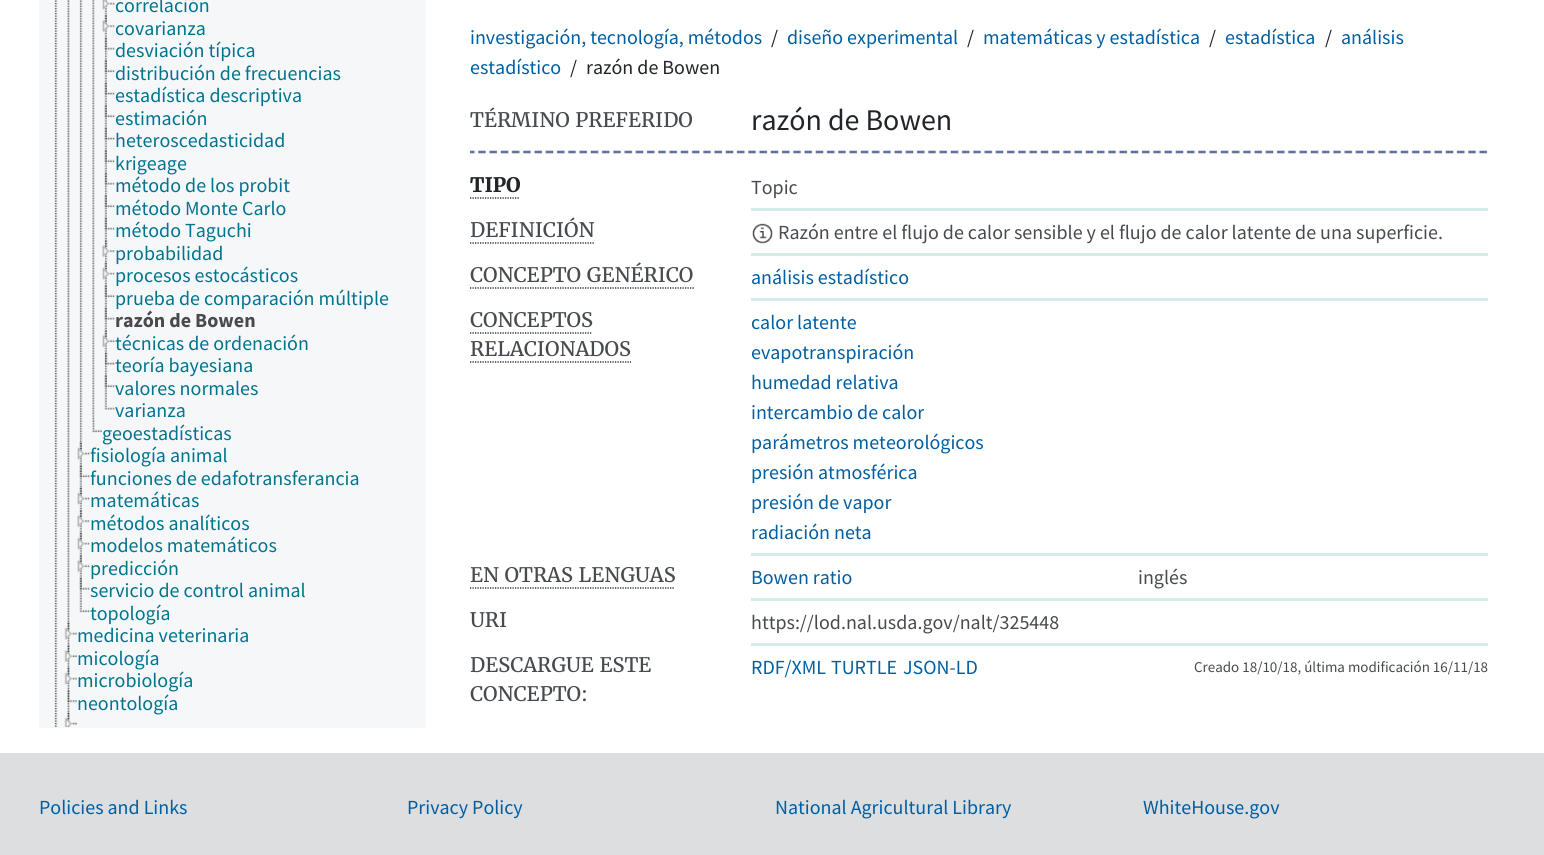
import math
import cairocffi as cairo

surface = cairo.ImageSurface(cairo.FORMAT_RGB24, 1544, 855)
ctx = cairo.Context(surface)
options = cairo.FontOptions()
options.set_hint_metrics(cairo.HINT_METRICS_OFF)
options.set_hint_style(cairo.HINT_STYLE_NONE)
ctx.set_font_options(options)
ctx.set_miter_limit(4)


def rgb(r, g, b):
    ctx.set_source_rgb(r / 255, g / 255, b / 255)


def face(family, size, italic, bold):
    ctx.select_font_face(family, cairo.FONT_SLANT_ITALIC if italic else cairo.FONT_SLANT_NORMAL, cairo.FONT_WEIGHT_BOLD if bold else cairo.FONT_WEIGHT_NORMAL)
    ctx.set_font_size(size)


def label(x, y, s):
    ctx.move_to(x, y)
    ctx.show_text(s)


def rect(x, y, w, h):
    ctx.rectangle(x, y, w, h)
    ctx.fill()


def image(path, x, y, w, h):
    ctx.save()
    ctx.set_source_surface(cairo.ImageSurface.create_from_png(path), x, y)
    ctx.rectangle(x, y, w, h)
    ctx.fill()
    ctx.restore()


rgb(255, 255, 255)
ctx.paint()
rgb(246, 247, 248)
rect(39, 0, 387, 728)
image('image0.png', 54, 0, 4, 727)
image('image1.png', 67, 0, 3, 624)
image('image2.png', 79, 0, 4, 444)
image('image3.png', 92, 0, 3, 422)
image('image4.png', 104, 0, 3, 15)
image('image5.png', 102, 0, 13, 10)
face('Source Sans Pro', 20, 0, 0)
rgb(0, 116, 143)
label(115, 12, 'correlación')
image('image6.png', 104, 15, 3, 23)
image('image7.png', 102, 15, 13, 18)
label(115, 35, 'covarianza')
image('image8.png', 104, 37, 4, 23)
image('image9.png', 104, 37, 11, 13)
label(115, 57, 'desviación típica')
image('image6.png', 104, 60, 3, 23)
image('image10.png', 104, 59, 11, 14)
label(115, 80, 'distribución de frecuencias')
image('image11.png', 104, 82, 3, 23)
image('image12.png', 104, 82, 11, 13)
label(115, 102, 'estadística descriptiva')
image('image6.png', 104, 105, 3, 23)
image('image13.png', 104, 104, 11, 14)
label(115, 125, 'estimación')
image('image11.png', 104, 127, 3, 23)
image('image12.png', 104, 127, 11, 13)
label(115, 147, 'heteroscedasticidad')
image('image6.png', 104, 150, 3, 23)
image('image13.png', 104, 149, 11, 14)
label(115, 170, 'krigeage')
image('image8.png', 104, 172, 4, 23)
image('image9.png', 104, 172, 11, 13)
label(115, 192, 'método de los probit')
image('image6.png', 104, 195, 3, 23)
image('image10.png', 104, 194, 11, 14)
label(115, 215, 'método Monte Carlo')
image('image14.png', 104, 217, 3, 23)
image('image15.png', 104, 217, 11, 13)
label(115, 237, 'método Taguchi')
image('image16.png', 104, 239, 4, 24)
image('image17.png', 102, 240, 13, 18)
label(115, 260, 'probabilidad')
image('image18.png', 104, 262, 3, 23)
image('image19.png', 102, 262, 13, 18)
label(115, 282, 'procesos estocásticos')
image('image6.png', 104, 285, 3, 23)
image('image20.png', 104, 284, 11, 14)
label(115, 305, 'prueba de comparación múltiple')
image('image21.png', 104, 307, 3, 23)
image('image22.png', 104, 307, 11, 13)
face('Source Sans Pro', 20, 0, 1)
rgb(71, 75, 79)
label(115, 327, 'razón de Bowen')
image('image6.png', 104, 330, 3, 23)
image('image23.png', 102, 329, 13, 19)
face('Source Sans Pro', 20, 0, 0)
rgb(0, 116, 143)
label(115, 350, 'técnicas de ordenación')
image('image8.png', 104, 352, 4, 23)
image('image24.png', 104, 352, 11, 13)
label(115, 372, 'teoría bayesiana')
image('image6.png', 104, 375, 3, 23)
image('image10.png', 104, 374, 11, 14)
label(115, 395, 'valores normales')
image('image25.png', 104, 397, 11, 13)
label(115, 417, 'varianza')
image('image26.png', 92, 419, 10, 14)
label(102, 440, 'geoestadísticas')
image('image27.png', 79, 442, 3, 23)
image('image28.png', 77, 442, 13, 18)
label(90, 462, 'fisiología animal')
image('image29.png', 79, 464, 3, 24)
image('image30.png', 79, 464, 11, 14)
label(90, 485, 'funciones de edafotransferancia')
image('image31.png', 79, 487, 3, 23)
image('image32.png', 77, 487, 13, 18)
label(90, 507, 'matemáticas')
image('image29.png', 79, 509, 3, 24)
image('image33.png', 77, 510, 13, 18)
label(90, 530, 'métodos analíticos')
image('image31.png', 79, 532, 3, 23)
image('image34.png', 77, 532, 13, 18)
label(90, 552, 'modelos matemáticos')
image('image6.png', 79, 555, 3, 23)
image('image23.png', 77, 554, 13, 19)
label(90, 575, 'predicción')
image('image14.png', 79, 577, 3, 23)
image('image35.png', 79, 577, 11, 13)
label(90, 597, 'servicio de control animal')
image('image36.png', 79, 599, 11, 14)
label(90, 620, 'topología')
image('image37.png', 67, 622, 3, 23)
image('image38.png', 64, 622, 13, 18)
label(77, 642, 'medicina veterinaria')
image('image39.png', 67, 644, 3, 24)
image('image40.png', 64, 644, 13, 18)
label(77, 665, 'micología')
image('image41.png', 67, 667, 3, 23)
image('image42.png', 64, 667, 13, 18)
label(77, 687, 'microbiología')
image('image39.png', 67, 689, 3, 24)
image('image43.png', 67, 690, 10, 13)
label(77, 710, 'neontología')
image('image44.png', 67, 712, 3, 15)
image('image45.png', 64, 712, 13, 15)
rgb(0, 94, 162)
label(470, 44, 'investigación, tecnología, métodos')
rgb(33, 37, 41)
label(771, 44, '/')
rgb(0, 94, 162)
label(787, 44, 'diseño experimental')
rgb(33, 37, 41)
label(967, 44, '/')
rgb(0, 94, 162)
label(983, 44, 'matemáticas y estadística')
rgb(33, 37, 41)
label(1209, 44, '/')
rgb(0, 94, 162)
label(1225, 44, 'estadística')
rgb(33, 37, 41)
label(1325, 44, '/')
rgb(0, 94, 162)
label(1341, 44, 'análisis')
label(470, 74, 'estadístico')
rgb(33, 37, 41)
label(570, 74, '/')
label(586, 74, 'razón de Bowen')
face('Merriweather', 20, 0, 0)
rgb(71, 75, 79)
label(470, 127, 'TÉRMINO PREFERIDO')
face('Source Sans Pro', 30, 0, 0)
rgb(33, 37, 41)
label(751, 130, 'razón de Bowen')
image('image46.png', 470, 150, 1018, 4)
face('Merriweather', 20, 0, 1)
label(470, 192, 'TIPO')
ctx.new_path()
ctx.move_to(470, 198)
ctx.line_to(520, 198)
rgb(0, 0, 0)
ctx.set_line_width(1.2)
ctx.set_dash([1.25, 1.25])
ctx.stroke()
rgb(212, 237, 235)
rect(751, 208, 737, 3)
face('Source Sans Pro', 20, 0, 0)
rgb(71, 75, 79)
label(751, 194, 'Topic')
face('Merriweather', 20, 0, 0)
label(470, 237, 'DEFINICIÓN')
ctx.new_path()
ctx.move_to(470, 243)
ctx.line_to(594, 243)
rgb(0, 0, 0)
ctx.stroke()
rgb(212, 237, 235)
rect(751, 253, 737, 3)
image('image47.png', 752, 223, 21, 21)
face('Source Sans Pro', 20, 0, 0)
rgb(71, 75, 79)
label(778, 239, 'Razón entre el flujo de calor sensible y el flujo de calor latente de una superficie.')
face('Merriweather', 20, 0, 0)
label(470, 282, 'CONCEPTO GENÉRICO')
ctx.new_path()
ctx.move_to(470, 288)
ctx.line_to(694, 288)
rgb(0, 0, 0)
ctx.stroke()
rgb(212, 237, 235)
rect(751, 298, 737, 3)
face('Source Sans Pro', 20, 0, 0)
rgb(0, 94, 162)
label(751, 284, 'análisis estadístico')
face('Merriweather', 20, 0, 0)
rgb(71, 75, 79)
label(470, 327, 'CONCEPTOS')
ctx.new_path()
ctx.move_to(470, 333)
ctx.line_to(592.5, 333)
rgb(0, 0, 0)
ctx.stroke()
rgb(71, 75, 79)
label(470, 356, 'RELACIONADOS')
ctx.new_path()
ctx.move_to(470, 362)
ctx.line_to(631, 362)
rgb(0, 0, 0)
ctx.stroke()
rgb(212, 237, 235)
rect(751, 553, 737, 3)
face('Source Sans Pro', 20, 0, 0)
rgb(0, 94, 162)
label(751, 329, 'calor latente')
label(751, 359, 'evapotranspiración')
label(751, 389, 'humedad relativa')
label(751, 419, 'intercambio de calor')
label(751, 449, 'parámetros meteorológicos')
label(751, 479, 'presión atmosférica')
label(751, 509, 'presión de vapor')
label(751, 539, 'radiación neta')
face('Merriweather', 20, 0, 0)
rgb(71, 75, 79)
label(470, 582, 'EN OTRAS LENGUAS')
ctx.new_path()
ctx.move_to(470, 588)
ctx.line_to(675, 588)
rgb(0, 0, 0)
ctx.stroke()
rgb(212, 237, 235)
rect(751, 598, 737, 3)
face('Source Sans Pro', 20, 0, 0)
rgb(0, 94, 162)
label(751, 584, 'Bowen ratio')
rgb(71, 75, 79)
label(1138, 584, 'inglés')
face('Merriweather', 20, 0, 0)
label(470, 627, 'URI')
rgb(212, 237, 235)
rect(751, 643, 737, 3)
face('Source Sans Pro', 20, 0, 0)
rgb(71, 75, 79)
label(751, 629, 'https://lod.nal.usda.gov/nalt/325448')
face('Merriweather', 20, 0, 0)
label(470, 672, 'DESCARGUE ESTE')
label(470, 701, 'CONCEPTO:')
face('Source Sans Pro', 20, 0, 0)
rgb(0, 94, 162)
label(751, 674, 'RDF/XML')
label(831, 674, 'TURTLE')
label(903, 674, 'JSON-LD')
face('Source Sans Pro', 15, 0, 0)
rgb(71, 75, 79)
label(1194, 672, 'Creado 18/10/18, última modificación 16/11/18')
rgb(220, 222, 224)
rect(0, 753, 1544, 102)
face('Source Sans Pro', 20, 0, 0)
rgb(0, 94, 162)
label(39, 814, 'Policies and Links')
label(407, 814, 'Privacy Policy')
label(775, 814, 'National Agricultural Library')
label(1143, 814, 'WhiteHouse.gov')
surface.write_to_png('render.png')
